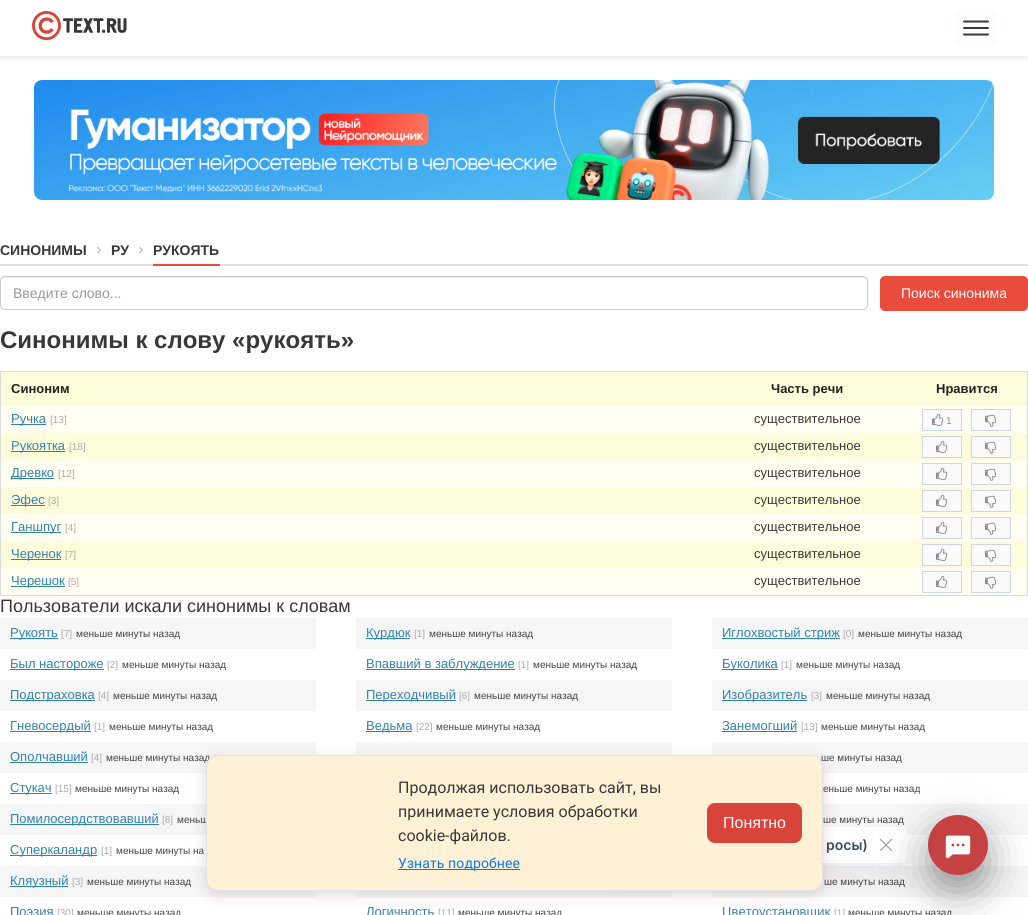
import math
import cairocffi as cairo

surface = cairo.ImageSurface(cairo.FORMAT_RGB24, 1028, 915)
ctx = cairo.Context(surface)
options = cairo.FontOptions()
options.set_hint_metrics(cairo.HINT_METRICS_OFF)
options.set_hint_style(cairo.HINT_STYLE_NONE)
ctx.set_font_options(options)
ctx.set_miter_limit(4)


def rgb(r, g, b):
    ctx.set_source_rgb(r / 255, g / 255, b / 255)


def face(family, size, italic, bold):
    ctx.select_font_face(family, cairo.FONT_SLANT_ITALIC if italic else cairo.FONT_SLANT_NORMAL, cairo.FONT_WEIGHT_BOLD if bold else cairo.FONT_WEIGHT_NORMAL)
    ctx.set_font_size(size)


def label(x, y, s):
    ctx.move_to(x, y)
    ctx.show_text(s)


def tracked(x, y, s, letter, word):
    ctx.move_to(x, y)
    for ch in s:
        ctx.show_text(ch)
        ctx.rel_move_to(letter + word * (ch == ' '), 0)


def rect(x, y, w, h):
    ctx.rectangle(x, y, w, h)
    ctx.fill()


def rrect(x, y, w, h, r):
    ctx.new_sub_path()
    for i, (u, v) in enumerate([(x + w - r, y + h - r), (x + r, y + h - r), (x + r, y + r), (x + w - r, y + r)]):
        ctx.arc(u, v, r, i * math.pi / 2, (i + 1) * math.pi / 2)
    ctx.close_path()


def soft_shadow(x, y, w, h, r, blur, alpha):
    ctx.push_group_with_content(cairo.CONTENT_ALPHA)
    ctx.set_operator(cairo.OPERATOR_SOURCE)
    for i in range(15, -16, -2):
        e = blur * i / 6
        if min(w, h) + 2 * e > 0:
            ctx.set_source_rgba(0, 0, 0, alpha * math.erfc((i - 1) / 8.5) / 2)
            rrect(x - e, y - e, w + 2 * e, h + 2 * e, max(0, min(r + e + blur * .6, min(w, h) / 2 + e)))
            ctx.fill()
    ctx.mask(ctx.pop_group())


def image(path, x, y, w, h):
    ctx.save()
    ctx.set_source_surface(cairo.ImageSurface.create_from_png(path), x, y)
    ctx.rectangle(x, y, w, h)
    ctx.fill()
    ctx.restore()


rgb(255, 255, 255)
ctx.paint()
ctx.save()
ctx.rectangle(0, 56, 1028, 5)
ctx.clip()
rgb(22, 44, 70)
soft_shadow(0, 1, 1028, 56, 0, 4, 0.14)
ctx.restore()
image('image0.png', 32, 11, 95, 30)
rgb(255, 253, 250)
rrect(956, 8, 40, 40, 8)
ctx.fill()
ctx.new_path()
ctx.move_to(964, 21.5)
ctx.line_to(988, 21.5)
ctx.move_to(964, 28)
ctx.line_to(988, 28)
ctx.move_to(964, 34.5)
ctx.line_to(988, 34.5)
rgb(58, 58, 58)
ctx.set_line_cap(cairo.LINE_CAP_ROUND)
ctx.stroke()
image('image1.png', 34, 80, 960, 120)
face('Liberation Sans', 14, 0, 1)
rgb(56, 56, 56)
label(0, 255, 'СИНОНИМЫ')
image('image2.png', 97, 246, 4, 8)
label(111, 255, 'РУ')
image('image2.png', 139, 246, 4, 8)
rgb(225, 225, 225)
rect(0, 264, 1028, 2)
rgb(232, 76, 61)
rect(153, 264, 67, 2)
rgb(56, 56, 56)
label(153, 255, 'РУКОЯТЬ')
rgb(236, 236, 236)
ctx.new_path()
ctx.move_to(5, 278)
ctx.line_to(863, 278)
ctx.curve_to(865, 278, 867, 280, 867, 282)
ctx.curve_to(867, 279, 866, 277, 863, 277)
ctx.line_to(5, 277)
ctx.curve_to(2, 277, 1, 279, 1, 282)
ctx.curve_to(1, 280, 3, 278, 5, 278)
ctx.close_path()
ctx.fill()
rrect(0.5, 276.5, 867, 33, 4.5)
rgb(204, 204, 204)
ctx.set_line_width(1)
ctx.set_line_cap(cairo.LINE_CAP_BUTT)
ctx.stroke()
face('Liberation Sans', 14, 0, 0)
rgb(153, 153, 153)
label(13, 298, 'Введите слово...')
rgb(232, 76, 61)
rrect(880.5, 276.5, 147, 34, 4.5)
ctx.fill_preserve()
ctx.stroke()
rgb(255, 255, 255)
label(901, 298, 'Поиск синонима')
face('Liberation Sans', 24, 0, 1)
rgb(56, 56, 56)
label(0, 348, 'Синонимы к слову «рукоять»')
ctx.rectangle(0.5, 371.5, 1027, 224)
rgb(221, 221, 221)
ctx.stroke()
rgb(254, 253, 219)
rect(1, 372, 1026, 34)
face('Liberation Sans', 13, 0, 1)
rgb(34, 34, 34)
label(11, 393, 'Синоним')
label(771, 393, 'Часть речи')
label(936, 393, 'Нравится')
rgb(255, 254, 240)
rect(1, 406, 1026, 27)
rgb(48, 131, 174)
rect(11, 424, 35, 1)
face('Liberation Sans', 13, 0, 0)
label(11, 423, 'Ручка')
face('Liberation Sans', 10, 0, 0)
rgb(170, 170, 170)
label(50, 423, '[13]')
face('Liberation Sans', 13, 0, 0)
rgb(56, 56, 56)
label(754, 423, 'существительное')
rgb(250, 250, 250)
ctx.rectangle(922.5, 409.5, 39, 21)
ctx.fill_preserve()
rgb(205, 214, 225)
ctx.stroke()
image('image3.png', 932, 413, 12, 13)
face('Liberation Sans', 10, 0, 0)
rgb(135, 141, 148)
label(946, 424, '1')
rgb(250, 250, 250)
ctx.rectangle(971.5, 409.5, 39, 21)
ctx.fill_preserve()
rgb(205, 214, 225)
ctx.stroke()
image('image4.png', 985, 414, 12, 13)
rgb(254, 253, 219)
rect(1, 433, 1026, 27)
rgb(48, 131, 174)
rect(11, 451, 54, 1)
face('Liberation Sans', 13, 0, 0)
label(11, 450, 'Рукоятка')
face('Liberation Sans', 10, 0, 0)
rgb(170, 170, 170)
label(69, 450, '[18]')
face('Liberation Sans', 13, 0, 0)
rgb(56, 56, 56)
label(754, 450, 'существительное')
rgb(250, 250, 250)
ctx.rectangle(922.5, 436.5, 39, 21)
ctx.fill_preserve()
rgb(205, 214, 225)
ctx.stroke()
image('image3.png', 936, 440, 12, 13)
rgb(250, 250, 250)
ctx.rectangle(971.5, 436.5, 39, 21)
ctx.fill_preserve()
rgb(205, 214, 225)
ctx.stroke()
image('image4.png', 985, 441, 12, 13)
rgb(255, 254, 240)
rect(1, 460, 1026, 27)
rgb(48, 131, 174)
rect(11, 478, 43, 1)
label(11, 477, 'Древко')
face('Liberation Sans', 10, 0, 0)
rgb(170, 170, 170)
label(58, 477, '[12]')
face('Liberation Sans', 13, 0, 0)
rgb(56, 56, 56)
label(754, 477, 'существительное')
rgb(250, 250, 250)
ctx.rectangle(922.5, 463.5, 39, 21)
ctx.fill_preserve()
rgb(205, 214, 225)
ctx.stroke()
image('image3.png', 936, 467, 12, 13)
rgb(250, 250, 250)
ctx.rectangle(971.5, 463.5, 39, 21)
ctx.fill_preserve()
rgb(205, 214, 225)
ctx.stroke()
image('image4.png', 985, 468, 12, 13)
rgb(254, 253, 219)
rect(1, 487, 1026, 27)
rgb(48, 131, 174)
rect(11, 505, 34, 1)
label(11, 504, 'Эфес')
face('Liberation Sans', 10, 0, 0)
rgb(170, 170, 170)
label(48, 504, '[3]')
face('Liberation Sans', 13, 0, 0)
rgb(56, 56, 56)
label(754, 504, 'существительное')
rgb(250, 250, 250)
ctx.rectangle(922.5, 490.5, 39, 21)
ctx.fill_preserve()
rgb(205, 214, 225)
ctx.stroke()
image('image3.png', 936, 494, 12, 13)
rgb(250, 250, 250)
ctx.rectangle(971.5, 490.5, 39, 21)
ctx.fill_preserve()
rgb(205, 214, 225)
ctx.stroke()
image('image4.png', 985, 495, 12, 13)
rgb(255, 254, 240)
rect(1, 514, 1026, 27)
rgb(48, 131, 174)
rect(11, 532, 50, 1)
label(11, 531, 'Ганшпуг')
face('Liberation Sans', 10, 0, 0)
rgb(170, 170, 170)
label(65, 531, '[4]')
face('Liberation Sans', 13, 0, 0)
rgb(56, 56, 56)
label(754, 531, 'существительное')
rgb(250, 250, 250)
ctx.rectangle(922.5, 517.5, 39, 21)
ctx.fill_preserve()
rgb(205, 214, 225)
ctx.stroke()
image('image3.png', 936, 521, 12, 13)
rgb(250, 250, 250)
ctx.rectangle(971.5, 517.5, 39, 21)
ctx.fill_preserve()
rgb(205, 214, 225)
ctx.stroke()
image('image4.png', 985, 522, 12, 13)
rgb(254, 253, 219)
rect(1, 541, 1026, 27)
rgb(48, 131, 174)
rect(11, 559, 50, 1)
label(11, 558, 'Черенок')
face('Liberation Sans', 10, 0, 0)
rgb(170, 170, 170)
label(65, 558, '[7]')
face('Liberation Sans', 13, 0, 0)
rgb(56, 56, 56)
label(754, 558, 'существительное')
rgb(250, 250, 250)
ctx.rectangle(922.5, 544.5, 39, 21)
ctx.fill_preserve()
rgb(205, 214, 225)
ctx.stroke()
image('image3.png', 936, 548, 12, 13)
rgb(250, 250, 250)
ctx.rectangle(971.5, 544.5, 39, 21)
ctx.fill_preserve()
rgb(205, 214, 225)
ctx.stroke()
image('image4.png', 985, 549, 12, 13)
rgb(255, 254, 240)
rect(1, 568, 1026, 27)
rgb(48, 131, 174)
rect(11, 586, 54, 1)
label(11, 585, 'Черешок')
face('Liberation Sans', 10, 0, 0)
rgb(170, 170, 170)
label(68, 585, '[5]')
face('Liberation Sans', 13, 0, 0)
rgb(56, 56, 56)
label(754, 585, 'существительное')
rgb(250, 250, 250)
ctx.rectangle(922.5, 571.5, 39, 21)
ctx.fill_preserve()
rgb(205, 214, 225)
ctx.stroke()
image('image3.png', 936, 575, 12, 13)
rgb(250, 250, 250)
ctx.rectangle(971.5, 571.5, 39, 21)
ctx.fill_preserve()
rgb(205, 214, 225)
ctx.stroke()
image('image4.png', 985, 576, 12, 13)
face('Liberation Sans', 18, 0, 0)
rgb(56, 56, 56)
label(0, 612, 'Пользователи искали синонимы к словам')
rgb(246, 246, 246)
rect(0, 618, 316, 31)
rgb(48, 131, 174)
rect(10, 638, 48, 1)
face('Liberation Sans', 13, 0, 0)
label(10, 637, 'Рукоять')
face('Liberation Sans', 10, 0, 0)
rgb(170, 170, 170)
label(61, 637, '[7]')
rgb(68, 68, 68)
label(76, 637, 'меньше минуты назад')
rgb(48, 131, 174)
rect(10, 669, 94, 1)
face('Liberation Sans', 13, 0, 0)
label(10, 668, 'Был настороже')
face('Liberation Sans', 10, 0, 0)
rgb(170, 170, 170)
label(107, 668, '[2]')
rgb(68, 68, 68)
label(122, 668, 'меньше минуты назад')
rgb(246, 246, 246)
rect(0, 680, 316, 31)
rgb(48, 131, 174)
rect(10, 700, 85, 1)
face('Liberation Sans', 13, 0, 0)
label(10, 699, 'Подстраховка')
face('Liberation Sans', 10, 0, 0)
rgb(170, 170, 170)
label(98, 699, '[4]')
rgb(68, 68, 68)
label(113, 699, 'меньше минуты назад')
rgb(48, 131, 174)
rect(10, 731, 81, 1)
face('Liberation Sans', 13, 0, 0)
label(10, 730, 'Гневосердый')
face('Liberation Sans', 10, 0, 0)
rgb(170, 170, 170)
label(94, 730, '[1]')
rgb(68, 68, 68)
label(109, 730, 'меньше минуты назад')
rgb(246, 246, 246)
rect(0, 742, 316, 31)
face('Liberation Sans', 13, 0, 0)
rgb(48, 131, 174)
label(10, 761, 'Ополчавший')
rect(10, 762, 78, 1)
face('Liberation Sans', 10, 0, 0)
rgb(170, 170, 170)
label(91, 761, '[4]')
rgb(68, 68, 68)
label(106, 761, 'меньше минуты назад')
rgb(48, 131, 174)
rect(10, 793, 42, 1)
face('Liberation Sans', 13, 0, 0)
label(10, 792, 'Стукач')
face('Liberation Sans', 10, 0, 0)
rgb(170, 170, 170)
label(55, 792, '[15]')
rgb(68, 68, 68)
label(75, 792, 'меньше минуты назад')
rgb(246, 246, 246)
rect(0, 804, 206, 31)
rgb(48, 131, 174)
rect(10, 824, 149, 1)
face('Liberation Sans', 13, 0, 0)
label(10, 823, 'Помилосердствовавший')
face('Liberation Sans', 10, 0, 0)
rgb(170, 170, 170)
label(162, 823, '[8]')
rgb(68, 68, 68)
label(177, 823, 'меньш')
rgb(48, 131, 174)
rect(10, 855, 87, 1)
face('Liberation Sans', 13, 0, 0)
label(10, 854, 'Суперкаландр')
face('Liberation Sans', 10, 0, 0)
rgb(170, 170, 170)
label(101, 854, '[1]')
rgb(68, 68, 68)
label(116, 854, 'меньше минуты на')
rgb(246, 246, 246)
rect(0, 866, 316, 31)
rgb(48, 131, 174)
rect(10, 886, 58, 1)
face('Liberation Sans', 13, 0, 0)
label(10, 885, 'Кляузный')
face('Liberation Sans', 10, 0, 0)
rgb(170, 170, 170)
label(72, 885, '[3]')
rgb(68, 68, 68)
label(87, 885, 'меньше минуты назад')
face('Liberation Sans', 13, 0, 0)
rgb(48, 131, 174)
label(10, 916, 'Поэзия')
face('Liberation Sans', 10, 0, 0)
rgb(170, 170, 170)
label(57, 916, '[30]')
rgb(68, 68, 68)
label(77, 916, 'меньше минуты назад')
rgb(246, 246, 246)
rect(356, 618, 316, 31)
rgb(48, 131, 174)
rect(366, 638, 44, 1)
face('Liberation Sans', 13, 0, 0)
label(366, 637, 'Курдюк')
face('Liberation Sans', 10, 0, 0)
rgb(170, 170, 170)
label(414, 637, '[1]')
rgb(68, 68, 68)
label(429, 637, 'меньше минуты назад')
rgb(48, 131, 174)
rect(366, 669, 149, 1)
face('Liberation Sans', 13, 0, 0)
label(366, 668, 'Впавший в заблуждение')
face('Liberation Sans', 10, 0, 0)
rgb(170, 170, 170)
label(518, 668, '[1]')
rgb(68, 68, 68)
label(533, 668, 'меньше минуты назад')
rgb(246, 246, 246)
rect(356, 680, 316, 31)
rgb(48, 131, 174)
rect(366, 700, 90, 1)
face('Liberation Sans', 13, 0, 0)
label(366, 699, 'Переходчивый')
face('Liberation Sans', 10, 0, 0)
rgb(170, 170, 170)
label(459, 699, '[6]')
rgb(68, 68, 68)
label(474, 699, 'меньше минуты назад')
rgb(48, 131, 174)
rect(366, 731, 46, 1)
face('Liberation Sans', 13, 0, 0)
label(366, 730, 'Ведьма')
face('Liberation Sans', 10, 0, 0)
rgb(170, 170, 170)
label(416, 730, '[22]')
rgb(68, 68, 68)
label(436, 730, 'меньше минуты назад')
rgb(246, 246, 246)
rect(356, 742, 316, 13)
rect(356, 891, 316, 6)
face('Liberation Sans', 13, 0, 0)
rgb(48, 131, 174)
label(366, 916, 'Логичность')
face('Liberation Sans', 10, 0, 0)
rgb(170, 170, 170)
label(438, 916, '[11]')
rgb(68, 68, 68)
label(458, 916, 'меньше минуты назад')
rgb(246, 246, 246)
rect(712, 618, 316, 31)
rgb(48, 131, 174)
rect(722, 638, 118, 1)
face('Liberation Sans', 13, 0, 0)
label(722, 637, 'Иглохвостый стриж')
face('Liberation Sans', 10, 0, 0)
rgb(170, 170, 170)
label(843, 637, '[0]')
rgb(68, 68, 68)
label(858, 637, 'меньше минуты назад')
rgb(48, 131, 174)
rect(722, 669, 56, 1)
face('Liberation Sans', 13, 0, 0)
label(722, 668, 'Буколика')
face('Liberation Sans', 10, 0, 0)
rgb(170, 170, 170)
label(781, 668, '[1]')
rgb(68, 68, 68)
label(796, 668, 'меньше минуты назад')
rgb(246, 246, 246)
rect(712, 680, 316, 31)
rgb(48, 131, 174)
rect(722, 700, 85, 1)
face('Liberation Sans', 13, 0, 0)
label(722, 699, 'Изобразитель')
face('Liberation Sans', 10, 0, 0)
rgb(170, 170, 170)
label(811, 699, '[3]')
rgb(68, 68, 68)
label(826, 699, 'меньше минуты назад')
face('Liberation Sans', 13, 0, 0)
rgb(48, 131, 174)
label(722, 730, 'Занемогший')
rect(722, 731, 75, 1)
face('Liberation Sans', 10, 0, 0)
rgb(170, 170, 170)
label(801, 730, '[13]')
rgb(68, 68, 68)
label(821, 730, 'меньше минуты назад')
rgb(246, 246, 246)
rect(712, 742, 316, 31)
rgb(68, 68, 68)
label(821, 761, 'ше минуты назад')
label(823, 792, 'еньше минуты назад')
rgb(246, 246, 246)
rect(823, 804, 205, 31)
rgb(68, 68, 68)
label(823, 823, 'ше минуты назад')
rgb(246, 246, 246)
rect(712, 866, 316, 31)
rgb(68, 68, 68)
label(824, 885, 'ше минуты назад')
face('Liberation Sans', 13, 0, 0)
rgb(48, 131, 174)
label(722, 916, 'Цветоустановщик')
face('Liberation Sans', 10, 0, 0)
rgb(170, 170, 170)
label(834, 916, '[1]')
rgb(68, 68, 68)
label(848, 916, 'меньше минуты назад')
ctx.save()
ctx.set_fill_rule(cairo.FILL_RULE_EVEN_ODD)
ctx.new_path()
ctx.move_to(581, 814)
ctx.line_to(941, 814)
ctx.line_to(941, 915)
ctx.line_to(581, 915)
ctx.close_path()
ctx.move_to(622, 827)
ctx.line_to(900, 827)
ctx.curve_to(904.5, 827, 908, 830.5, 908, 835)
ctx.line_to(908, 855)
ctx.curve_to(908, 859.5, 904.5, 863, 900, 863)
ctx.line_to(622, 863)
ctx.curve_to(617.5, 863, 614, 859.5, 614, 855)
ctx.line_to(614, 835)
ctx.curve_to(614, 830.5, 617.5, 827, 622, 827)
ctx.close_path()
ctx.clip()
rgb(16, 24, 40)
soft_shadow(618, 851, 286, 28, 4, 12, 0.08)
ctx.restore()
ctx.set_source_rgba(1, 1, 1, 0.95)
rrect(614, 827, 294, 36, 8)
ctx.fill()
rgb(76, 20, 20)
soft_shadow(206, 759, 617, 136, 12, 8, 0.16)
rgb(255, 241, 213)
rrect(206.5, 755.5, 616, 135, 11.5)
ctx.fill_preserve()
rgb(227, 227, 227)
ctx.stroke()
face('Roboto', 16, 0, 0)
rgb(56, 56, 56)
label(398, 793, 'Продолжая использовать сайт, вы')
label(398, 817, 'принимаете условия обработки')
label(398, 841, 'cookie-файлов.')
rgb(12, 120, 237)
rect(398, 869, 122, 1)
face('Roboto', 14, 0, 0)
tracked(398, 868, 'Узнать подробнее', 0.1, 0)
rgb(217, 68, 58)
rrect(707.5, 803.5, 94, 39, 7.5)
ctx.fill_preserve()
ctx.stroke()
face('Liberation Sans', 16, 0, 0)
rgb(255, 255, 255)
label(723, 828, 'Понятно')
face('Inter SemiBold', 14, 0, 0)
rgb(62, 73, 92)
label(826, 850, 'росы)')
image('image5.png', 879, 838, 14, 14)
rgb(0, 0, 0)
soft_shadow(928, 831, 60, 60, 30, 20, 0.4)
rgb(198, 65, 65)
ctx.arc(958, 845, 30, 0, 2 * math.pi)
ctx.fill()
image('image6.png', 945, 835, 26, 24)
surface.write_to_png('render.png')
